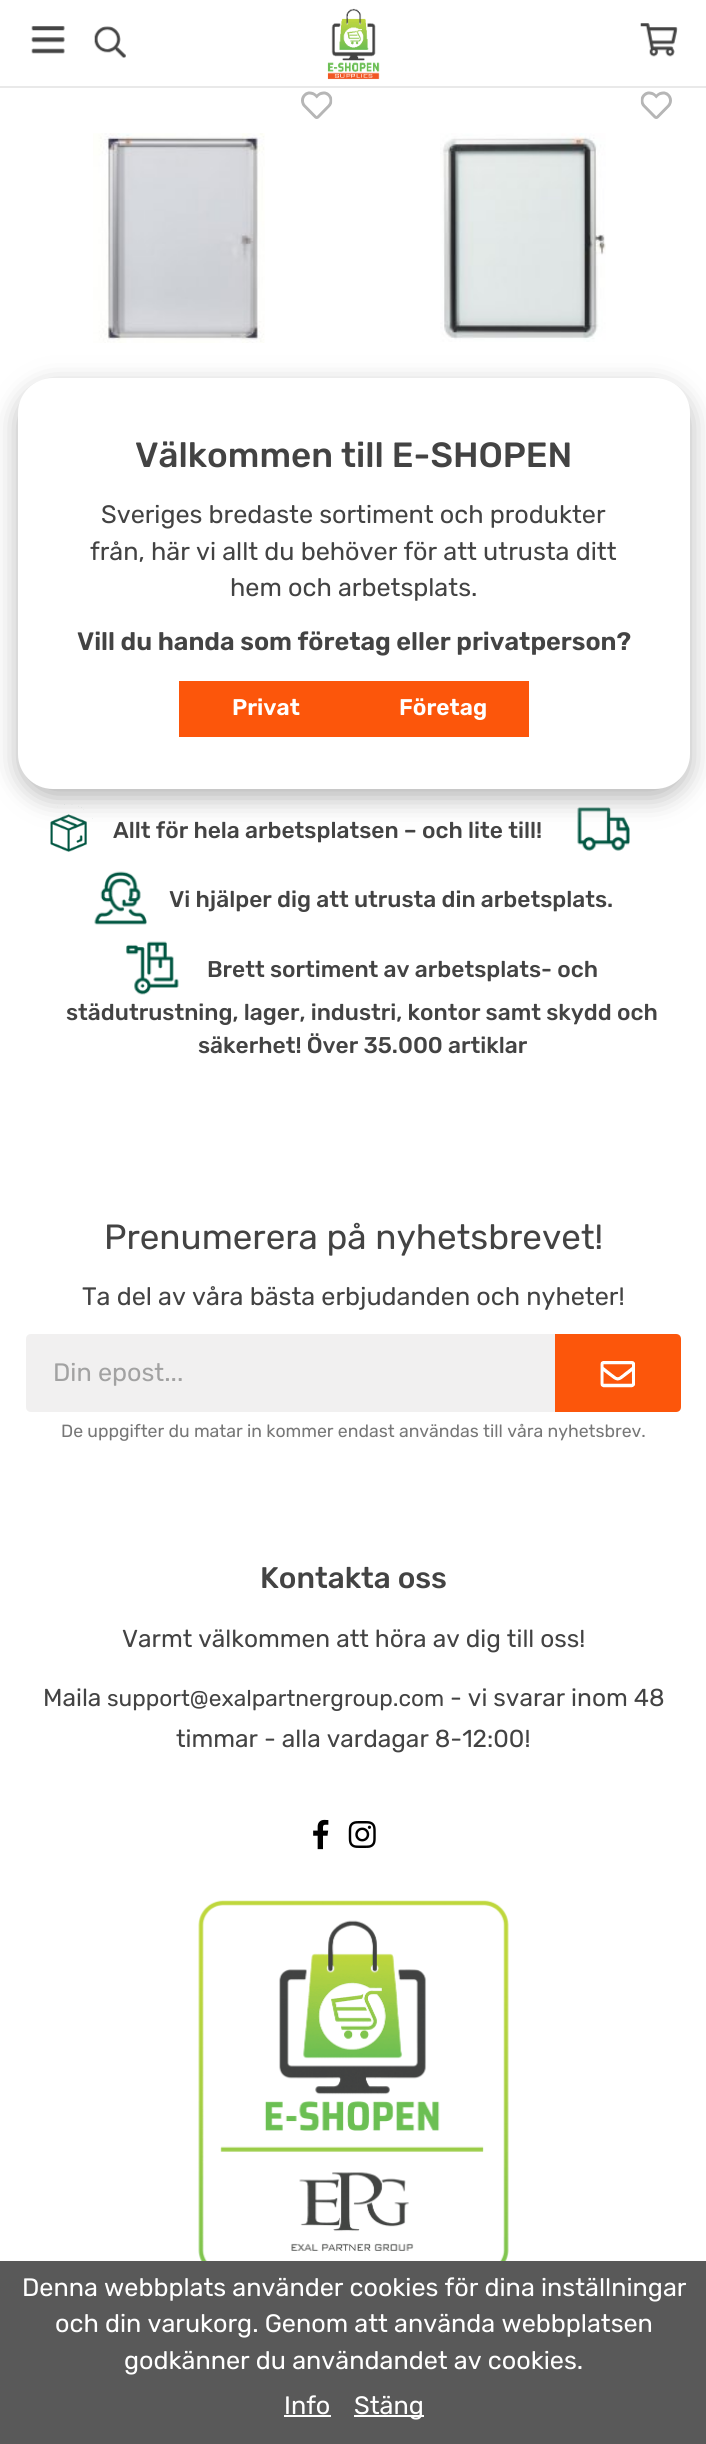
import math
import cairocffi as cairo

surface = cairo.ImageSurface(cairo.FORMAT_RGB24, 706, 2444)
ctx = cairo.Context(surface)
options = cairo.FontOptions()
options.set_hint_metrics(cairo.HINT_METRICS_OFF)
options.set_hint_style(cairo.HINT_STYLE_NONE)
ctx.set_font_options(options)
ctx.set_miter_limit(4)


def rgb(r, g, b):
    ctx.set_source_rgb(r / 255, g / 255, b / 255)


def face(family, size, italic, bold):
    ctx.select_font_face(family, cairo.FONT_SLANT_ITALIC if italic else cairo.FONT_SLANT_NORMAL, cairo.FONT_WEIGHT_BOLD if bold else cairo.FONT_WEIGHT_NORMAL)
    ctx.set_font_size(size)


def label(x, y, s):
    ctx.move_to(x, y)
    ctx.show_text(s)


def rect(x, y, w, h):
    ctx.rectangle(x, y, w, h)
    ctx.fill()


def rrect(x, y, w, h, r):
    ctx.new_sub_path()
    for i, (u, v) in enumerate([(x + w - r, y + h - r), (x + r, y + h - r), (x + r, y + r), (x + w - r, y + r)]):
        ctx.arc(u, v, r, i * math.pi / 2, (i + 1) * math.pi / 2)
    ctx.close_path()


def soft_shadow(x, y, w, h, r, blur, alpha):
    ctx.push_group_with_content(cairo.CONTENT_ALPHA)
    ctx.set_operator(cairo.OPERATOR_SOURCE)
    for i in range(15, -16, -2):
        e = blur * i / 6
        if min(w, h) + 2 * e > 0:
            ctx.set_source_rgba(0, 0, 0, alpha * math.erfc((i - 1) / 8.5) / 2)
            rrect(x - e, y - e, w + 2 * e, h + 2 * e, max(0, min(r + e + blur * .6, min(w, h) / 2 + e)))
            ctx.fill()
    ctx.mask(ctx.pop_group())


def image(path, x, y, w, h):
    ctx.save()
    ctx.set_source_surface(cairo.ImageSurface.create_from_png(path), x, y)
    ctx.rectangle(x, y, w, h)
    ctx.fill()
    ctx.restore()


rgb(255, 255, 255)
ctx.paint()
rgb(233, 233, 233)
rect(0, 86, 706, 2)
image('image0.png', 31, 26, 34, 28)
image('image1.png', 94, 26, 32, 32)
image('image2.png', 327, 8, 53, 72)
image('image3.png', 640, 23, 38, 34)
image('image8.png', 50, 804, 43, 48)
image('image9.png', 577, 807, 53, 44)
rgb(181, 181, 181)
soft_shadow(18, 387, 672, 411, 35, 13, 1)
rgb(255, 255, 255)
rrect(18, 378, 672, 411, 35)
ctx.fill()
face('Rubik Medium', 35, 0, 0)
rgb(67, 67, 67)
label(135, 467, 'Välkommen till E-SHOPEN')
face('Rubik', 25.2, 0, 0)
label(101, 523, 'Sveriges bredaste sortiment och produkter')
label(90, 560, 'från, här vi allt du behöver för att utrusta ditt')
label(230, 596, 'hem och arbetsplats.')
face('Rubik SemiBold', 25.2, 0, 0)
label(77, 650, 'Vill du handa som företag eller privatperson?')
rgb(252, 86, 11)
rect(179, 681, 350, 56)
face('Rubik SemiBold', 22.7, 0, 0)
rgb(255, 255, 255)
label(232, 715, 'Privat')
label(399, 715, 'Företag')
image('image4.png', 301, 91, 32, 28)
image('image5.png', 93, 133, 172, 210)
image('image6.png', 640, 91, 32, 28)
image('image7.png', 440, 133, 166, 209)
face('Rubik Medium', 22.75, 0, 0)
rgb(67, 67, 67)
label(113, 838, 'Allt för hela arbetsplatsen – och lite till!')
image('image10.png', 94, 871, 53, 54)
label(169, 907, 'Vi hjälper dig att utrusta din arbetsplats.')
image('image11.png', 126, 941, 53, 54)
label(207, 977, 'Brett sortiment av arbetsplats- och')
label(66, 1020, 'städutrustning, lager, industri, kontor samt skydd och')
label(198, 1053, 'säkerhet! Över 35.000 artiklar')
face('Rubik', 35, 0, 0)
label(104, 1249, 'Prenumerera på nyhetsbrevet!')
face('Rubik', 25.2, 0, 0)
label(82, 1305, 'Ta del av våra bästa erbjudanden och nyheter!')
rgb(241, 240, 240)
ctx.new_path()
ctx.move_to(31, 1334)
ctx.line_to(555, 1334)
ctx.line_to(555, 1412)
ctx.line_to(31, 1412)
ctx.curve_to(28, 1412, 26, 1410, 26, 1407)
ctx.line_to(26, 1339)
ctx.curve_to(26, 1336, 28, 1334, 31, 1334)
ctx.close_path()
ctx.fill()
rgb(162, 162, 162)
label(53, 1381, 'Din epost...')
rgb(252, 86, 11)
ctx.new_path()
ctx.move_to(555, 1334)
ctx.line_to(676, 1334)
ctx.curve_to(679, 1334, 681, 1336, 681, 1339)
ctx.line_to(681, 1407)
ctx.curve_to(681, 1410, 679, 1412, 676, 1412)
ctx.line_to(555, 1412)
ctx.close_path()
ctx.fill()
image('image12.png', 600, 1361, 35, 27)
face('Rubik', 17.65, 0, 0)
rgb(119, 119, 119)
label(61, 1437, 'De uppgifter du matar in kommer endast användas till våra nyhetsbrev.')
face('Rubik Medium', 29.75, 0, 0)
rgb(67, 67, 67)
label(260, 1588, 'Kontakta oss')
face('Rubik', 24.5, 0, 0)
label(122, 1647, 'Varmt välkommen att höra av dig till oss!')
label(43, 1706, 'Maila')
face('Rubik', 22.7, 0, 0)
label(107, 1706, 'support@exalpartnergroup.com')
face('Rubik', 24.5, 0, 0)
label(450, 1706, '- vi svarar inom 48')
label(176, 1747, 'timmar - alla vardagar 8-12:00!')
image('image13.png', 313, 1819, 16, 31)
image('image14.png', 348, 1821, 28, 27)
image('image15.png', 198, 1900, 311, 361)
rgb(89, 89, 89)
rect(0, 2261, 706, 183)
face('Rubik', 25.2, 0, 0)
rgb(255, 255, 255)
label(22, 2296, 'Denna webbplats använder cookies för dina inställningar')
label(55, 2332, 'och din varukorg. Genom att använda webbplatsen')
label(124, 2369, 'godkänner du användandet av cookies.')
label(284, 2414, 'Info')
rect(284, 2415, 47, 2)
rect(354, 2415, 70, 2)
label(354, 2414, 'Stäng')
surface.write_to_png('render.png')
